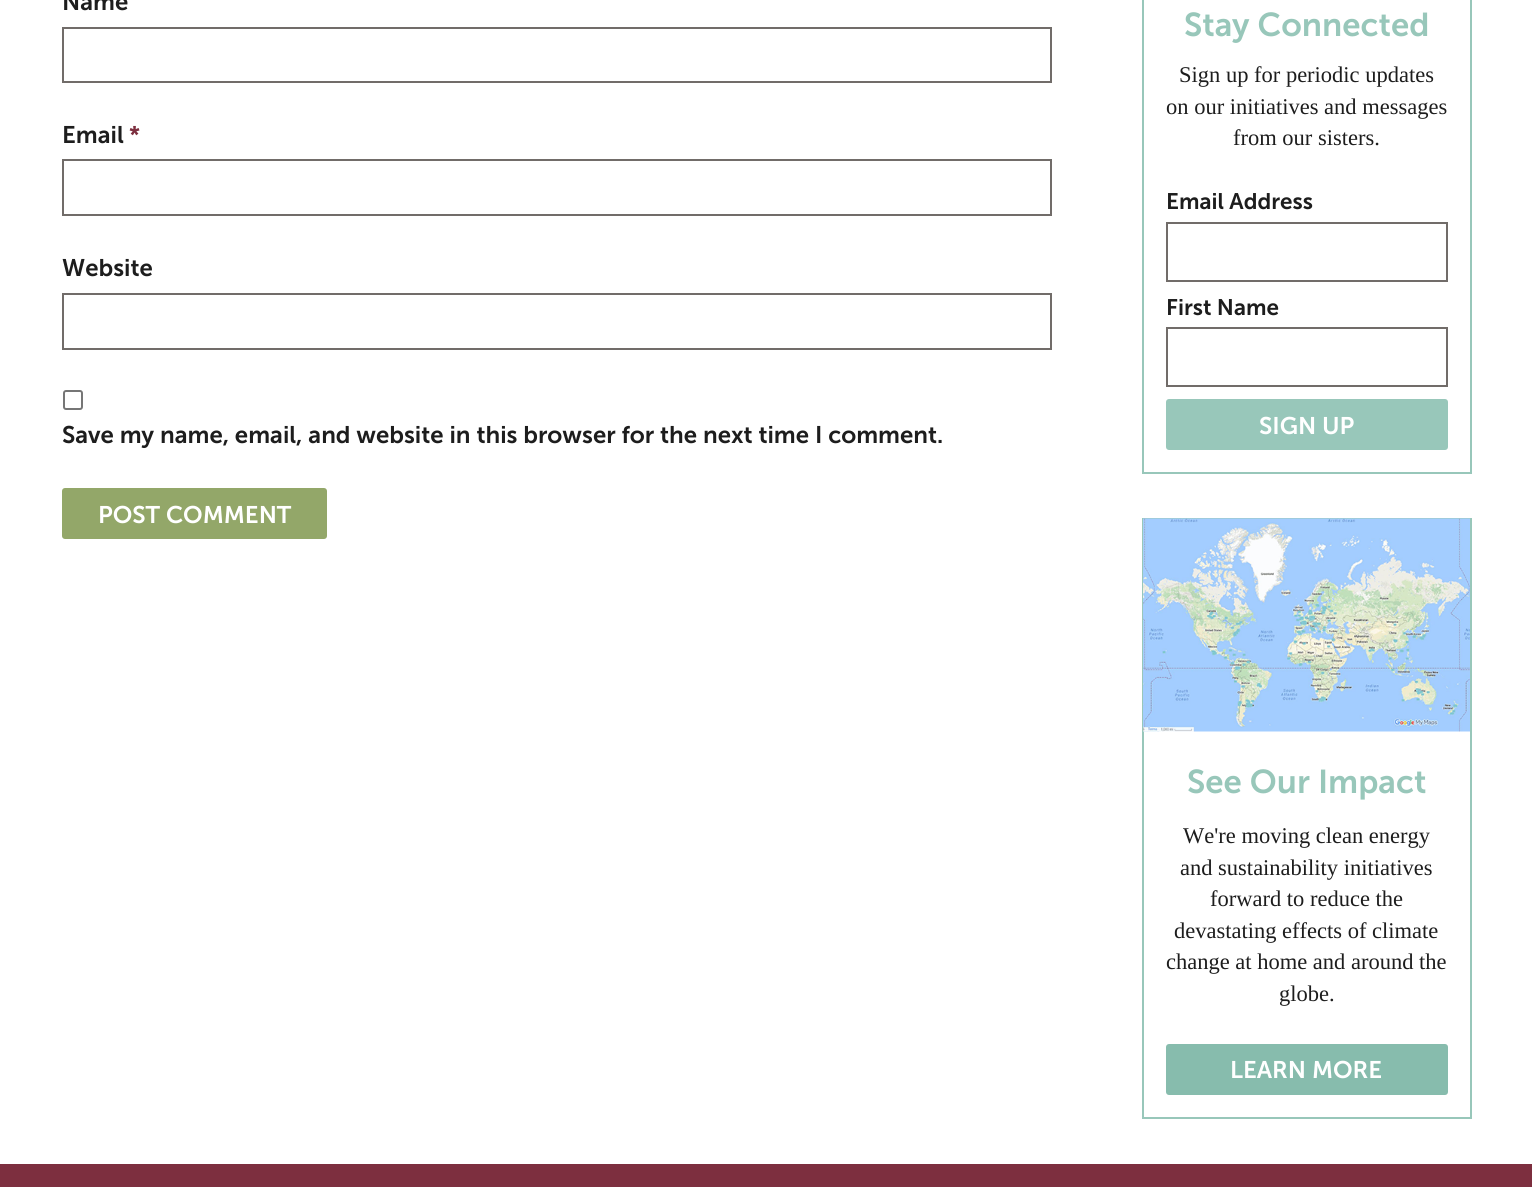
import math
import cairocffi as cairo

surface = cairo.ImageSurface(cairo.FORMAT_RGB24, 1532, 1187)
ctx = cairo.Context(surface)
options = cairo.FontOptions()
options.set_hint_metrics(cairo.HINT_METRICS_OFF)
options.set_hint_style(cairo.HINT_STYLE_NONE)
ctx.set_font_options(options)
ctx.set_miter_limit(4)


def rgb(r, g, b):
    ctx.set_source_rgb(r / 255, g / 255, b / 255)


def face(family, size, italic, bold):
    ctx.select_font_face(family, cairo.FONT_SLANT_ITALIC if italic else cairo.FONT_SLANT_NORMAL, cairo.FONT_WEIGHT_BOLD if bold else cairo.FONT_WEIGHT_NORMAL)
    ctx.set_font_size(size)


def label(x, y, s):
    ctx.move_to(x, y)
    ctx.show_text(s)


def rect(x, y, w, h):
    ctx.rectangle(x, y, w, h)
    ctx.fill()


def rrect(x, y, w, h, r):
    ctx.new_sub_path()
    for i, (u, v) in enumerate([(x + w - r, y + h - r), (x + r, y + h - r), (x + r, y + r), (x + w - r, y + r)]):
        ctx.arc(u, v, r, i * math.pi / 2, (i + 1) * math.pi / 2)
    ctx.close_path()


def image(path, x, y, w, h):
    ctx.save()
    ctx.set_source_surface(cairo.ImageSurface.create_from_png(path), x, y)
    ctx.rectangle(x, y, w, h)
    ctx.fill()
    ctx.restore()


rgb(255, 255, 255)
ctx.paint()
face('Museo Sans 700 SemiBold', 24, 0, 0)
rgb(29, 29, 29)
label(62, 10, 'Name')
ctx.rectangle(63, 28, 988, 54)
rgb(113, 108, 105)
ctx.stroke()
rgb(29, 29, 29)
label(62, 143, 'Email')
rgb(125, 47, 63)
label(129, 143, '*')
ctx.rectangle(63, 160, 988, 55)
rgb(113, 108, 105)
ctx.stroke()
rgb(29, 29, 29)
label(62, 276, 'Website')
ctx.rectangle(63, 294, 988, 55)
rgb(113, 108, 105)
ctx.stroke()
rrect(64, 391, 18, 18, 2)
rgb(118, 118, 118)
ctx.stroke()
rgb(29, 29, 29)
label(62, 443, 'Save my name, email, and website in this browser for the next time I comment.')
rgb(147, 167, 105)
rrect(62, 488, 265, 51, 3)
ctx.fill()
rgb(255, 255, 255)
label(98, 523, 'POST COMMENT')
ctx.rectangle(1143, -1, 328, 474)
rgb(152, 199, 186)
ctx.stroke()
face('Museo Sans 700 SemiBold', 33, 0, 0)
label(1184, 36, 'Stay Connected')
face('Liberation Serif', 22.5, 0, 0)
rgb(29, 29, 29)
label(1179, 82, 'Sign up for periodic updates')
label(1166, 114, 'on our initiatives and messages')
label(1233, 145, 'from our sisters.')
face('Museo Sans 700 SemiBold', 22.5, 0, 0)
label(1166, 209, 'Email Address')
ctx.rectangle(1167, 223, 280, 58)
rgb(113, 108, 105)
ctx.stroke()
rgb(29, 29, 29)
label(1166, 315, 'First Name')
ctx.rectangle(1167, 328, 280, 58)
rgb(113, 108, 105)
ctx.stroke()
rgb(152, 199, 186)
rrect(1166, 399, 282, 51, 3)
ctx.fill()
face('Museo Sans 700 SemiBold', 24, 0, 0)
rgb(255, 255, 255)
label(1259, 434, 'SIGN UP')
ctx.rectangle(1143, 519, 328, 599)
rgb(152, 199, 186)
ctx.stroke()
image('image0.png', 1143, 518, 327, 214)
face('Museo Sans 700 SemiBold', 33, 0, 0)
label(1187, 793, 'See Our Impact')
face('Liberation Serif', 22.5, 0, 0)
rgb(29, 29, 29)
label(1183, 843, 'We\'re moving clean energy')
label(1180, 875, 'and sustainability initiatives')
label(1210, 906, 'forward to reduce the')
label(1174, 938, 'devastating effects of climate')
label(1166, 969, 'change at home and around the')
label(1279, 1001, 'globe.')
rgb(135, 188, 173)
rrect(1166, 1044, 282, 51, 3)
ctx.fill()
face('Museo Sans 700 SemiBold', 24, 0, 0)
rgb(255, 255, 255)
label(1230, 1078, 'LEARN MORE')
rgb(125, 47, 63)
rect(0, 1164, 1532, 23)
surface.write_to_png('render.png')
